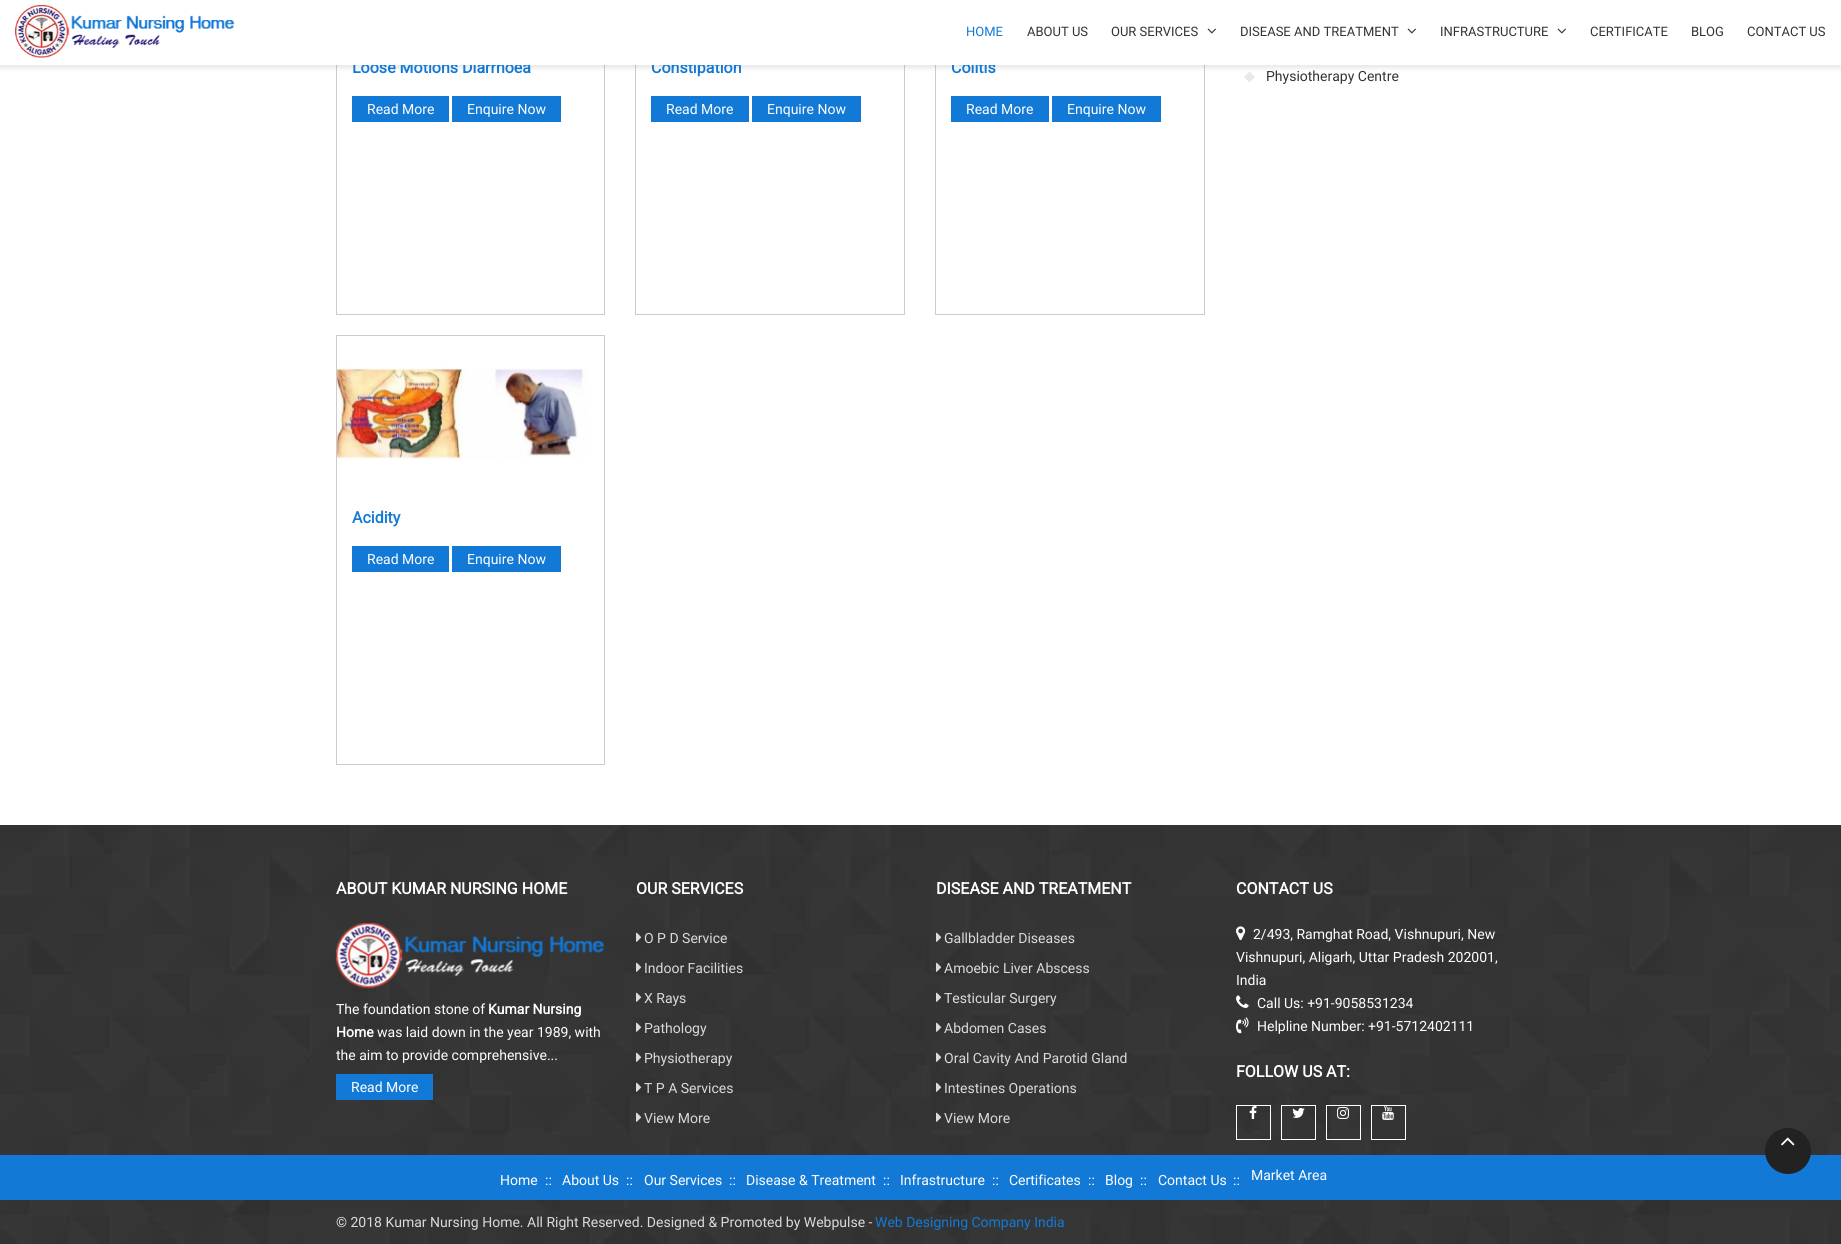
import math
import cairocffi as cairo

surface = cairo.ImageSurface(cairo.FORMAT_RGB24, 1841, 1244)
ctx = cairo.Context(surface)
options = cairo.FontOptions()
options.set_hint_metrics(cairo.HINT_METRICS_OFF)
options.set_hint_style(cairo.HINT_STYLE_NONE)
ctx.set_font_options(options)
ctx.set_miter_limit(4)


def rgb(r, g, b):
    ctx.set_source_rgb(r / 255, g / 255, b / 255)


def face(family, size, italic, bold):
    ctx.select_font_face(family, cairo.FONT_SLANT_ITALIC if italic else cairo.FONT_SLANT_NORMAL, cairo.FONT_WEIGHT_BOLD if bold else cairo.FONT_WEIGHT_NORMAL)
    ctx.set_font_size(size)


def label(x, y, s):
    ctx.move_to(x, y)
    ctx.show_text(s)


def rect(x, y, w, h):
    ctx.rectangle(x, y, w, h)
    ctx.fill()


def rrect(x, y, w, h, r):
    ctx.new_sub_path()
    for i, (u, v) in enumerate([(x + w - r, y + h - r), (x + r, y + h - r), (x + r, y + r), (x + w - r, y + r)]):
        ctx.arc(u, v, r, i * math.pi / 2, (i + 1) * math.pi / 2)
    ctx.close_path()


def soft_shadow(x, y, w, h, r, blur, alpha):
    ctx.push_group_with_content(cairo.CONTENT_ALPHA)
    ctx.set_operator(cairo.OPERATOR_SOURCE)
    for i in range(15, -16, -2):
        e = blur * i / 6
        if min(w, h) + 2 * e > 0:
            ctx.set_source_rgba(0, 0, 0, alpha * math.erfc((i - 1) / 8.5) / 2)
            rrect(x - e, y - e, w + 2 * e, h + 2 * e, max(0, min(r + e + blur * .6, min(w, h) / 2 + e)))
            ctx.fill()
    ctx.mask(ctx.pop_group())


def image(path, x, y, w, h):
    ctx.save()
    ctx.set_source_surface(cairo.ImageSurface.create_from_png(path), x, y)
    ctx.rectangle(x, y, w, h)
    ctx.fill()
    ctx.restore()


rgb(255, 255, 255)
ctx.paint()
ctx.rectangle(336.5, -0.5, 268, 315)
rgb(204, 204, 204)
ctx.set_line_width(1)
ctx.stroke()
ctx.rectangle(635.5, -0.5, 269, 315)
ctx.stroke()
ctx.rectangle(935.5, -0.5, 269, 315)
ctx.stroke()
rgb(233, 233, 233)
ctx.new_path()
ctx.move_to(1249.5, 71.5)
ctx.line_to(1255, 77)
ctx.line_to(1249.5, 82.5)
ctx.line_to(1244, 77)
ctx.close_path()
ctx.fill()
rgb(0, 0, 0)
soft_shadow(0, 3, 1841, 65, 0, 2.5, 0.1)
face('Roboto', 16, 0, 1)
rgb(19, 121, 214)
label(352, 73, 'Loose Motions Diarrhoea')
label(651, 73, 'Constipation')
label(951, 73, 'Colitis')
rgb(255, 255, 255)
rect(0, 0, 1841, 65)
image('image0.png', 15, 5, 220, 53)
face('Roboto', 13, 0, 0)
rgb(19, 121, 214)
label(966, 36, 'HOME')
rgb(51, 51, 51)
label(1027, 36, 'ABOUT US')
label(1111, 36, 'OUR SERVICES')
image('image1.png', 1207, 28, 9, 6)
label(1240, 36, 'DISEASE AND TREATMENT')
image('image1.png', 1407, 28, 9, 6)
label(1440, 36, 'INFRASTRUCTURE')
image('image1.png', 1557, 28, 9, 6)
label(1590, 36, 'CERTIFICATE')
label(1691, 36, 'BLOG')
label(1747, 36, 'CONTACT US')
rgb(19, 121, 214)
rect(352, 96, 97, 26)
face('Roboto', 14, 0, 0)
rgb(255, 255, 255)
label(367, 114, 'Read More')
rgb(19, 121, 214)
rect(452, 96, 109, 26)
rgb(255, 255, 255)
label(467, 114, 'Enquire Now')
rgb(19, 121, 214)
rect(651, 96, 98, 26)
rgb(255, 255, 255)
label(666, 114, 'Read More')
rgb(19, 121, 214)
rect(752, 96, 109, 26)
rgb(255, 255, 255)
label(767, 114, 'Enquire Now')
rgb(19, 121, 214)
rect(951, 96, 98, 26)
rgb(255, 255, 255)
label(966, 114, 'Read More')
rgb(19, 121, 214)
rect(1052, 96, 109, 26)
rgb(255, 255, 255)
label(1067, 114, 'Enquire Now')
ctx.rectangle(336.5, 335.5, 268, 429)
rgb(204, 204, 204)
ctx.stroke()
image('image2.png', 337, 367, 250, 93)
face('Roboto', 16, 0, 1)
rgb(19, 121, 214)
label(352, 523, 'Acidity')
rect(352, 546, 97, 26)
face('Roboto', 14, 0, 0)
rgb(255, 255, 255)
label(367, 564, 'Read More')
rgb(19, 121, 214)
rect(452, 546, 109, 26)
rgb(255, 255, 255)
label(467, 564, 'Enquire Now')
rgb(51, 51, 51)
label(1266, 81, 'Physiotherapy Centre')
image('image3.png', 0, 825, 1841, 419)
face('Roboto', 16, 0, 1)
rgb(255, 255, 255)
label(336, 894, 'ABOUT KUMAR NURSING HOME')
image('image4.png', 335, 922, 270, 67)
face('Roboto', 14, 0, 0)
label(336, 1014, 'The foundation stone of')
face('Roboto', 14, 0, 1)
label(488, 1014, 'Kumar Nursing')
label(336, 1037, 'Home')
face('Roboto', 14, 0, 0)
label(377, 1037, 'was laid down in the year 1989, with')
label(336, 1060, 'the aim to provide comprehensive...')
rgb(19, 121, 214)
rect(336, 1074, 97, 26)
rgb(255, 255, 255)
label(351, 1092, 'Read More')
face('Roboto', 16, 0, 1)
label(636, 894, 'OUR SERVICES')
image('image5.png', 636, 932, 6, 10)
face('Roboto', 14, 0, 0)
rgb(218, 218, 218)
label(644, 943, 'O P D Service')
image('image6.png', 636, 962, 6, 10)
label(644, 973, 'Indoor Facilities')
image('image7.png', 636, 992, 6, 10)
label(644, 1003, 'X Rays')
image('image8.png', 636, 1022, 6, 10)
label(644, 1033, 'Pathology')
image('image9.png', 636, 1052, 6, 10)
label(644, 1063, 'Physiotherapy')
image('image10.png', 636, 1082, 6, 10)
label(644, 1093, 'T P A Services')
image('image7.png', 636, 1112, 6, 10)
label(644, 1123, 'View More')
face('Roboto', 16, 0, 1)
rgb(255, 255, 255)
label(936, 894, 'DISEASE AND TREATMENT')
image('image7.png', 936, 932, 6, 10)
face('Roboto', 14, 0, 0)
rgb(218, 218, 218)
label(944, 943, 'Gallbladder Diseases')
image('image11.png', 936, 962, 6, 10)
label(944, 973, 'Amoebic Liver Abscess')
image('image12.png', 936, 992, 6, 10)
label(944, 1003, 'Testicular Surgery')
image('image8.png', 936, 1022, 6, 10)
label(944, 1033, 'Abdomen Cases')
image('image13.png', 936, 1052, 6, 10)
label(944, 1063, 'Oral Cavity And Parotid Gland')
image('image14.png', 936, 1082, 6, 10)
label(944, 1093, 'Intestines Operations')
image('image15.png', 936, 1112, 6, 10)
label(944, 1123, 'View More')
face('Roboto', 16, 0, 1)
rgb(255, 255, 255)
label(1236, 894, 'CONTACT US')
image('image16.png', 1236, 926, 10, 15)
face('Roboto', 14, 0, 0)
label(1253, 939, '2/493, Ramghat Road, Vishnupuri, New')
label(1236, 962, 'Vishnupuri, Aligarh, Uttar Pradesh 202001,')
label(1236, 985, 'India')
image('image17.png', 1236, 995, 13, 13)
label(1257, 1008, 'Call Us: +91-9058531234')
image('image18.png', 1236, 1017, 13, 17)
label(1257, 1031, 'Helpline Number: +91-5712402111')
face('Roboto', 16, 0, 1)
label(1236, 1077, 'FOLLOW US AT:')
ctx.rectangle(1236.5, 1105.5, 34, 34)
ctx.stroke()
image('image19.png', 1249, 1106, 8, 13)
ctx.rectangle(1281.5, 1105.5, 34, 34)
ctx.stroke()
image('image20.png', 1292, 1108, 13, 10)
ctx.rectangle(1326.5, 1105.5, 34, 34)
ctx.stroke()
image('image21.png', 1337, 1107, 12, 12)
ctx.rectangle(1371.5, 1105.5, 34, 34)
ctx.stroke()
image('image22.png', 1382, 1106, 12, 14)
rgb(19, 121, 214)
rect(0, 1155, 1841, 45)
face('Roboto', 14, 0, 0)
rgb(255, 255, 255)
label(500, 1185, 'Home')
label(545, 1185, '::')
label(562, 1185, 'About Us')
label(626, 1185, '::')
label(644, 1185, 'Our Services')
label(729, 1185, '::')
label(746, 1185, 'Disease & Treatment')
label(883, 1185, '::')
label(900, 1185, 'Infrastructure')
label(992, 1185, '::')
label(1009, 1185, 'Certificates')
label(1088, 1185, '::')
label(1105, 1185, 'Blog')
label(1140, 1185, '::')
label(1158, 1185, 'Contact Us')
label(1233, 1185, '::')
label(1251, 1180, 'Market Area')
rgb(218, 218, 218)
label(336, 1227, '© 2018 Kumar Nursing Home. All Right Reserved. Designed & Promoted by Webpulse -')
rgb(19, 121, 214)
label(875, 1227, 'Web Designing Company India')
rgb(34, 34, 34)
ctx.new_path()
ctx.arc(1788, 1151, 23, 0, 2 * math.pi)
ctx.fill()
image('image23.png', 1781, 1137, 14, 9)
surface.write_to_png('render.png')
